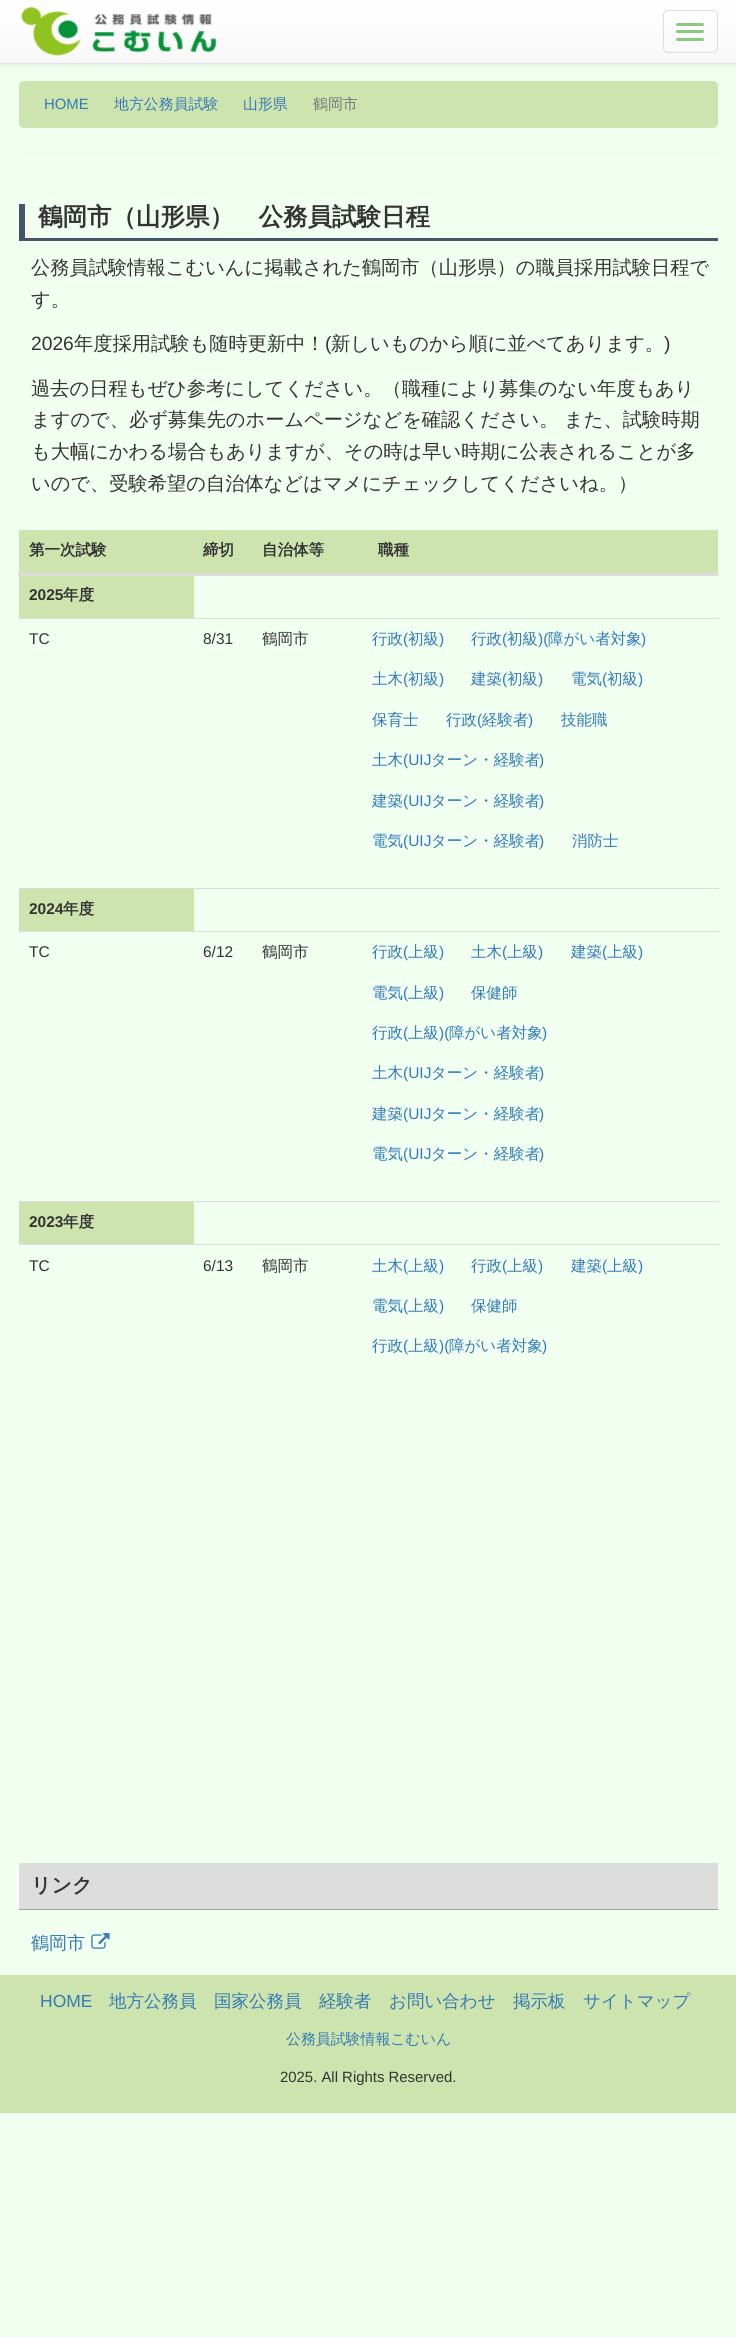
import math
import cairocffi as cairo

surface = cairo.ImageSurface(cairo.FORMAT_RGB24, 736, 2337)
ctx = cairo.Context(surface)
options = cairo.FontOptions()
options.set_hint_metrics(cairo.HINT_METRICS_OFF)
options.set_hint_style(cairo.HINT_STYLE_NONE)
ctx.set_font_options(options)
ctx.set_miter_limit(4)


def rgb(r, g, b):
    ctx.set_source_rgb(r / 255, g / 255, b / 255)


def face(family, size, italic, bold):
    ctx.select_font_face(family, cairo.FONT_SLANT_ITALIC if italic else cairo.FONT_SLANT_NORMAL, cairo.FONT_WEIGHT_BOLD if bold else cairo.FONT_WEIGHT_NORMAL)
    ctx.set_font_size(size)


def label(x, y, s):
    ctx.move_to(x, y)
    ctx.show_text(s)


def rect(x, y, w, h):
    ctx.rectangle(x, y, w, h)
    ctx.fill()


def rrect(x, y, w, h, r):
    ctx.new_sub_path()
    for i, (u, v) in enumerate([(x + w - r, y + h - r), (x + r, y + h - r), (x + r, y + r), (x + w - r, y + r)]):
        ctx.arc(u, v, r, i * math.pi / 2, (i + 1) * math.pi / 2)
    ctx.close_path()


def soft_shadow(x, y, w, h, r, blur, alpha):
    ctx.push_group_with_content(cairo.CONTENT_ALPHA)
    ctx.set_operator(cairo.OPERATOR_SOURCE)
    for i in range(15, -16, -2):
        e = blur * i / 6
        if min(w, h) + 2 * e > 0:
            ctx.set_source_rgba(0, 0, 0, alpha * math.erfc((i - 1) / 8.5) / 2)
            rrect(x - e, y - e, w + 2 * e, h + 2 * e, max(0, min(r + e + blur * .6, min(w, h) / 2 + e)))
            ctx.fill()
    ctx.mask(ctx.pop_group())


def image(path, x, y, w, h):
    ctx.save()
    ctx.set_source_surface(cairo.ImageSurface.create_from_png(path), x, y)
    ctx.rectangle(x, y, w, h)
    ctx.fill()
    ctx.restore()


rgb(240, 255, 240)
ctx.paint()
rgb(0, 0, 0)
soft_shadow(0, 1, 736, 64, 0, 3, 0.07)
gradient = cairo.LinearGradient(368, 0, 368, 63)
gradient.add_color_stop_rgba(0, 1, 1, 1, 1)
gradient.add_color_stop_rgba(1, 0.973, 0.973, 0.973, 1)
ctx.set_source(gradient)
rect(0, 0, 736, 63)
rgb(231, 231, 231)
rect(0, 63, 736, 1)
image('image0.png', 20, 7, 197, 49)
rrect(663.5, 10.5, 54, 42, 4.5)
rgb(221, 221, 221)
ctx.set_line_width(1)
ctx.stroke()
rgb(136, 203, 127)
rrect(676, 23, 28, 3, 1.5)
ctx.fill()
rrect(676, 30, 28, 3, 1.5)
ctx.fill()
rrect(676, 38, 28, 3, 1.5)
ctx.fill()
rgb(206, 228, 174)
rrect(19, 81, 699, 47, 5)
ctx.fill()
face('Liberation Sans', 14.9, 0, 0)
rgb(51, 122, 183)
label(44, 109, 'HOME')
face('WenQuanYi Zen Hei Medium', 14.9, 0, 0)
label(114, 109, '地方公務員試験')
label(243, 109, '山形県')
rgb(119, 119, 119)
label(313, 109, '鶴岡市')
rgb(238, 238, 238)
rect(19, 153, 699, 1)
rgb(69, 87, 101)
rect(19, 238, 699, 3)
rect(19, 204, 6, 36)
face('WenQuanYi Zen Hei', 24.5, 0, 1)
rgb(51, 51, 51)
label(38, 225, '鶴岡市（山形県）　公務員試験日程')
face('WenQuanYi Zen Hei Medium', 19.25, 0, 0)
label(31, 274, '公務員試験情報こむいんに掲載された鶴岡市（山形県）の職員採用試験日程で')
label(31, 306, 'す。')
face('Liberation Sans', 19.25, 0, 0)
label(31, 350, '2026')
face('WenQuanYi Zen Hei Medium', 19.25, 0, 0)
label(74, 350, '年度採用試験も随時更新中！')
face('Liberation Sans', 19.25, 0, 0)
label(325, 350, '(')
face('WenQuanYi Zen Hei Medium', 19.25, 0, 0)
label(331, 350, '新しいものから順に並べてあります。')
face('Liberation Sans', 19.25, 0, 0)
label(664, 350, ')')
face('WenQuanYi Zen Hei Medium', 19.25, 0, 0)
label(31, 395, '過去の日程もぜひ参考にしてください。（職種により募集のない年度もあり')
label(31, 426, 'ますので、必ず募集先のホームページなどを確認ください。')
label(564, 426, 'また、試験時期')
label(31, 458, 'も大幅にかわる場合もありますが、その時は早い時期に公表されることが多')
label(31, 490, 'いので、受験希望の自治体などはマメにチェックしてくださいね。）')
rgb(206, 228, 174)
rect(19, 530, 699, 43)
face('WenQuanYi Zen Hei', 15.5, 0, 1)
rgb(51, 51, 51)
label(29, 555, '第一次試験')
label(203, 555, '締切')
rgb(221, 221, 221)
rect(366, 573, 353, 3)
rect(193, 575, 176, 1)
rect(18, 573, 177, 3)
rect(193, 573, 176, 2)
rgb(51, 51, 51)
label(262, 555, '自治体等')
label(378, 555, '職種')
rgb(206, 228, 174)
rect(19, 576, 175, 42)
face('Liberation Sans', 15.5, 0, 1)
rgb(51, 51, 51)
label(29, 600, '2025')
face('WenQuanYi Zen Hei', 15.5, 0, 1)
label(63, 600, '年度')
face('Liberation Sans', 15.5, 0, 0)
label(29, 644, 'TC')
label(203, 644, '8/31')
face('WenQuanYi Zen Hei Medium', 15.5, 0, 0)
label(262, 644, '鶴岡市')
rgb(221, 221, 221)
rect(19, 618, 700, 1)
rgb(51, 122, 183)
label(372, 644, '行政')
face('Liberation Sans', 15.5, 0, 0)
label(403, 644, '(')
face('WenQuanYi Zen Hei Medium', 15.5, 0, 0)
label(408, 644, '初級')
face('Liberation Sans', 15.5, 0, 0)
label(439, 644, ')')
face('WenQuanYi Zen Hei Medium', 15.5, 0, 0)
label(471, 644, '行政')
face('Liberation Sans', 15.5, 0, 0)
label(502, 644, '(')
face('WenQuanYi Zen Hei Medium', 15.5, 0, 0)
label(507, 644, '初級')
face('Liberation Sans', 15.5, 0, 0)
label(538, 644, ')(')
face('WenQuanYi Zen Hei Medium', 15.5, 0, 0)
label(548, 644, '障がい者対象')
face('Liberation Sans', 15.5, 0, 0)
label(641, 644, ')')
face('WenQuanYi Zen Hei Medium', 15.5, 0, 0)
label(372, 684, '土木')
face('Liberation Sans', 15.5, 0, 0)
label(403, 684, '(')
face('WenQuanYi Zen Hei Medium', 15.5, 0, 0)
label(408, 684, '初級')
face('Liberation Sans', 15.5, 0, 0)
label(439, 684, ')')
face('WenQuanYi Zen Hei Medium', 15.5, 0, 0)
label(471, 684, '建築')
face('Liberation Sans', 15.5, 0, 0)
label(502, 684, '(')
face('WenQuanYi Zen Hei Medium', 15.5, 0, 0)
label(507, 684, '初級')
face('Liberation Sans', 15.5, 0, 0)
label(538, 684, ')')
face('WenQuanYi Zen Hei Medium', 15.5, 0, 0)
label(571, 684, '電気')
face('Liberation Sans', 15.5, 0, 0)
label(602, 684, '(')
face('WenQuanYi Zen Hei Medium', 15.5, 0, 0)
label(607, 684, '初級')
face('Liberation Sans', 15.5, 0, 0)
label(638, 684, ')')
face('WenQuanYi Zen Hei Medium', 15.5, 0, 0)
label(372, 725, '保育士')
label(446, 725, '行政')
face('Liberation Sans', 15.5, 0, 0)
label(477, 725, '(')
face('WenQuanYi Zen Hei Medium', 15.5, 0, 0)
label(482, 725, '経験者')
face('Liberation Sans', 15.5, 0, 0)
label(528, 725, ')')
face('WenQuanYi Zen Hei Medium', 15.5, 0, 0)
label(561, 725, '技能職')
label(372, 765, '土木')
face('Liberation Sans', 15.5, 0, 0)
label(403, 765, '(UIJ')
face('WenQuanYi Zen Hei Medium', 15.5, 0, 0)
label(431, 765, 'ターン・経験者')
face('Liberation Sans', 15.5, 0, 0)
label(539, 765, ')')
face('WenQuanYi Zen Hei Medium', 15.5, 0, 0)
label(372, 806, '建築')
face('Liberation Sans', 15.5, 0, 0)
label(403, 806, '(UIJ')
face('WenQuanYi Zen Hei Medium', 15.5, 0, 0)
label(431, 806, 'ターン・経験者')
face('Liberation Sans', 15.5, 0, 0)
label(539, 806, ')')
face('WenQuanYi Zen Hei Medium', 15.5, 0, 0)
label(372, 846, '電気')
face('Liberation Sans', 15.5, 0, 0)
label(403, 846, '(UIJ')
face('WenQuanYi Zen Hei Medium', 15.5, 0, 0)
label(431, 846, 'ターン・経験者')
face('Liberation Sans', 15.5, 0, 0)
label(539, 846, ')')
face('WenQuanYi Zen Hei Medium', 15.5, 0, 0)
label(572, 846, '消防士')
rgb(221, 221, 221)
rect(19, 888, 700, 1)
rgb(206, 228, 174)
rect(19, 889, 175, 42)
face('Liberation Sans', 15.5, 0, 1)
rgb(51, 51, 51)
label(29, 914, '2024')
face('WenQuanYi Zen Hei', 15.5, 0, 1)
label(63, 914, '年度')
face('Liberation Sans', 15.5, 0, 0)
label(29, 957, 'TC')
label(203, 957, '6/12')
face('WenQuanYi Zen Hei Medium', 15.5, 0, 0)
label(262, 957, '鶴岡市')
rgb(221, 221, 221)
rect(19, 931, 700, 1)
rgb(51, 122, 183)
label(372, 957, '行政')
face('Liberation Sans', 15.5, 0, 0)
label(403, 957, '(')
face('WenQuanYi Zen Hei Medium', 15.5, 0, 0)
label(408, 957, '上級')
face('Liberation Sans', 15.5, 0, 0)
label(439, 957, ')')
face('WenQuanYi Zen Hei Medium', 15.5, 0, 0)
label(471, 957, '土木')
face('Liberation Sans', 15.5, 0, 0)
label(502, 957, '(')
face('WenQuanYi Zen Hei Medium', 15.5, 0, 0)
label(507, 957, '上級')
face('Liberation Sans', 15.5, 0, 0)
label(538, 957, ')')
face('WenQuanYi Zen Hei Medium', 15.5, 0, 0)
label(571, 957, '建築')
face('Liberation Sans', 15.5, 0, 0)
label(602, 957, '(')
face('WenQuanYi Zen Hei Medium', 15.5, 0, 0)
label(607, 957, '上級')
face('Liberation Sans', 15.5, 0, 0)
label(638, 957, ')')
face('WenQuanYi Zen Hei Medium', 15.5, 0, 0)
label(372, 998, '電気')
face('Liberation Sans', 15.5, 0, 0)
label(403, 998, '(')
face('WenQuanYi Zen Hei Medium', 15.5, 0, 0)
label(408, 998, '上級')
face('Liberation Sans', 15.5, 0, 0)
label(439, 998, ')')
face('WenQuanYi Zen Hei Medium', 15.5, 0, 0)
label(471, 998, '保健師')
label(372, 1038, '行政')
face('Liberation Sans', 15.5, 0, 0)
label(403, 1038, '(')
face('WenQuanYi Zen Hei Medium', 15.5, 0, 0)
label(408, 1038, '上級')
face('Liberation Sans', 15.5, 0, 0)
label(439, 1038, ')(')
face('WenQuanYi Zen Hei Medium', 15.5, 0, 0)
label(449, 1038, '障がい者対象')
face('Liberation Sans', 15.5, 0, 0)
label(542, 1038, ')')
face('WenQuanYi Zen Hei Medium', 15.5, 0, 0)
label(372, 1078, '土木')
face('Liberation Sans', 15.5, 0, 0)
label(403, 1078, '(UIJ')
face('WenQuanYi Zen Hei Medium', 15.5, 0, 0)
label(431, 1078, 'ターン・経験者')
face('Liberation Sans', 15.5, 0, 0)
label(539, 1078, ')')
face('WenQuanYi Zen Hei Medium', 15.5, 0, 0)
label(372, 1119, '建築')
face('Liberation Sans', 15.5, 0, 0)
label(403, 1119, '(UIJ')
face('WenQuanYi Zen Hei Medium', 15.5, 0, 0)
label(431, 1119, 'ターン・経験者')
face('Liberation Sans', 15.5, 0, 0)
label(539, 1119, ')')
face('WenQuanYi Zen Hei Medium', 15.5, 0, 0)
label(372, 1159, '電気')
face('Liberation Sans', 15.5, 0, 0)
label(403, 1159, '(UIJ')
face('WenQuanYi Zen Hei Medium', 15.5, 0, 0)
label(431, 1159, 'ターン・経験者')
face('Liberation Sans', 15.5, 0, 0)
label(539, 1159, ')')
rgb(221, 221, 221)
rect(19, 1201, 700, 1)
rgb(206, 228, 174)
rect(19, 1202, 175, 42)
face('Liberation Sans', 15.5, 0, 1)
rgb(51, 51, 51)
label(29, 1227, '2023')
face('WenQuanYi Zen Hei', 15.5, 0, 1)
label(63, 1227, '年度')
face('Liberation Sans', 15.5, 0, 0)
label(29, 1271, 'TC')
label(203, 1271, '6/13')
face('WenQuanYi Zen Hei Medium', 15.5, 0, 0)
label(262, 1271, '鶴岡市')
rgb(221, 221, 221)
rect(19, 1244, 700, 1)
rgb(51, 122, 183)
label(372, 1271, '土木')
face('Liberation Sans', 15.5, 0, 0)
label(403, 1271, '(')
face('WenQuanYi Zen Hei Medium', 15.5, 0, 0)
label(408, 1271, '上級')
face('Liberation Sans', 15.5, 0, 0)
label(439, 1271, ')')
face('WenQuanYi Zen Hei Medium', 15.5, 0, 0)
label(471, 1271, '行政')
face('Liberation Sans', 15.5, 0, 0)
label(502, 1271, '(')
face('WenQuanYi Zen Hei Medium', 15.5, 0, 0)
label(507, 1271, '上級')
face('Liberation Sans', 15.5, 0, 0)
label(538, 1271, ')')
face('WenQuanYi Zen Hei Medium', 15.5, 0, 0)
label(571, 1271, '建築')
face('Liberation Sans', 15.5, 0, 0)
label(602, 1271, '(')
face('WenQuanYi Zen Hei Medium', 15.5, 0, 0)
label(607, 1271, '上級')
face('Liberation Sans', 15.5, 0, 0)
label(638, 1271, ')')
face('WenQuanYi Zen Hei Medium', 15.5, 0, 0)
label(372, 1311, '電気')
face('Liberation Sans', 15.5, 0, 0)
label(403, 1311, '(')
face('WenQuanYi Zen Hei Medium', 15.5, 0, 0)
label(408, 1311, '上級')
face('Liberation Sans', 15.5, 0, 0)
label(439, 1311, ')')
face('WenQuanYi Zen Hei Medium', 15.5, 0, 0)
label(471, 1311, '保健師')
label(372, 1351, '行政')
face('Liberation Sans', 15.5, 0, 0)
label(403, 1351, '(')
face('WenQuanYi Zen Hei Medium', 15.5, 0, 0)
label(408, 1351, '上級')
face('Liberation Sans', 15.5, 0, 0)
label(439, 1351, ')(')
face('WenQuanYi Zen Hei Medium', 15.5, 0, 0)
label(449, 1351, '障がい者対象')
face('Liberation Sans', 15.5, 0, 0)
label(542, 1351, ')')
rgb(221, 221, 221)
rect(19, 1863, 699, 46)
rgb(155, 168, 141)
rect(19, 1909, 699, 1)
face('WenQuanYi Zen Hei', 20, 0, 1)
rgb(51, 51, 51)
label(31, 1892, 'リンク')
face('WenQuanYi Zen Hei Medium', 18, 0, 0)
rgb(51, 122, 183)
label(31, 1949, '鶴岡市')
image('image1.png', 91, 1933, 19, 16)
rgb(206, 228, 174)
rect(0, 1975, 736, 138)
face('Liberation Sans', 17.5, 0, 0)
rgb(51, 122, 183)
label(40, 2007, 'HOME')
face('WenQuanYi Zen Hei Medium', 17.5, 0, 0)
label(109, 2007, '地方公務員')
label(214, 2007, '国家公務員')
label(319, 2007, '経験者')
label(389, 2007, 'お問い合わせ')
label(513, 2007, '掲示板')
label(583, 2007, 'サイトマップ')
face('WenQuanYi Zen Hei Medium', 14.9, 0, 0)
label(286, 2044, '公務員試験情報こむいん')
face('Liberation Sans', 14.9, 0, 0)
rgb(51, 51, 51)
label(280, 2082, '2025. All Rights Reserved.')
surface.write_to_png('render.png')
